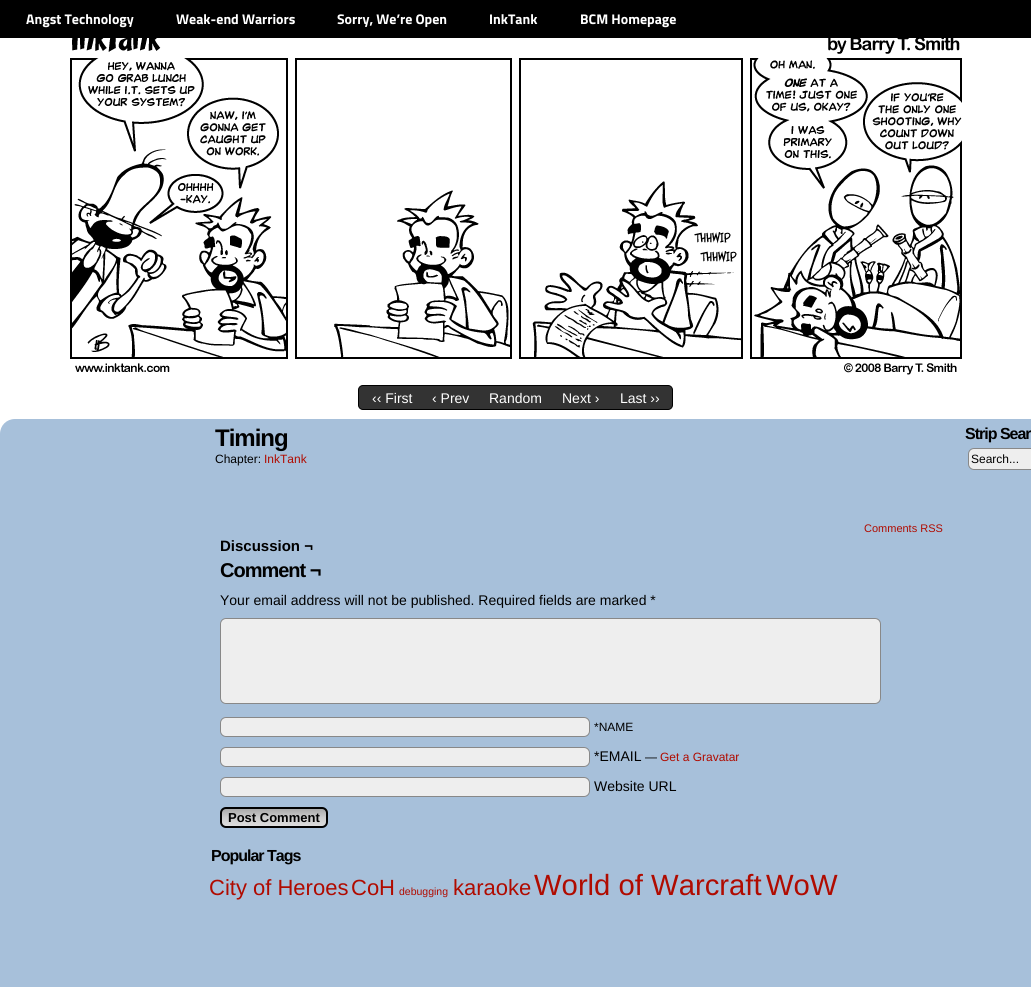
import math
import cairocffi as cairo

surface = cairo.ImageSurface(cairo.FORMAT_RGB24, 1031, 987)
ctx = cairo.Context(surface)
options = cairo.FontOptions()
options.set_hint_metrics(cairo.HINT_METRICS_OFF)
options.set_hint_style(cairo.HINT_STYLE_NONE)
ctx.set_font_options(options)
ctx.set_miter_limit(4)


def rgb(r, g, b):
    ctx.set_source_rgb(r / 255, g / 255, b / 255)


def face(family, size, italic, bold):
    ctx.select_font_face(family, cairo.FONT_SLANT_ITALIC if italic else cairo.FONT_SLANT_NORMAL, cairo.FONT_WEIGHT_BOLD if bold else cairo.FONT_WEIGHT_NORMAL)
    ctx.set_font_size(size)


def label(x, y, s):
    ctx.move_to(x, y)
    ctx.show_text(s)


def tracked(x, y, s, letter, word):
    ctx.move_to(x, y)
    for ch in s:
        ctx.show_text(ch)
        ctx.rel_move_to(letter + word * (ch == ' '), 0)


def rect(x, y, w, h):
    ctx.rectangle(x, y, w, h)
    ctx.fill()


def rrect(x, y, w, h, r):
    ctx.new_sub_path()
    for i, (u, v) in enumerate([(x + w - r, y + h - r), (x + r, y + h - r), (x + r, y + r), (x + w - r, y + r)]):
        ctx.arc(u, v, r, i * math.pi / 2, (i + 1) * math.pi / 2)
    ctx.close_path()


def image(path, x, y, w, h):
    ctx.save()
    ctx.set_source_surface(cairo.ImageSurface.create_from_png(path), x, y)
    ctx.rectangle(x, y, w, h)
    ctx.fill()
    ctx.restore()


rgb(255, 255, 255)
ctx.paint()
rgb(0, 0, 0)
rect(0, 0, 1031, 38)
face('Titillium Web', 14, 0, 1)
rgb(255, 255, 255)
label(26, 24, 'Angst Technology')
label(176, 24, 'Weak-end Warriors')
label(337, 24, 'Sorry, We’re Open')
label(489, 24, 'InkTank')
label(580, 24, 'BCM Homepage')
image('image0.png', 70, 38, 892, 337)
rgb(51, 51, 51)
rrect(358.5, 385.5, 314, 24, 4.5)
ctx.fill_preserve()
rgb(0, 0, 0)
ctx.set_line_width(1)
ctx.stroke()
face('Liberation Sans', 14, 0, 0)
rgb(255, 255, 255)
label(372, 403, '‹‹ First')
label(432, 403, '‹ Prev')
label(489, 403, 'Random')
label(562, 403, 'Next ›')
label(620, 403, 'Last ››')
rgb(167, 192, 218)
ctx.new_path()
ctx.move_to(15, 419)
ctx.line_to(1031, 419)
ctx.curve_to(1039.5, 419, 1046, 425.5, 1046, 434)
ctx.line_to(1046, 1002)
ctx.line_to(0, 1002)
ctx.line_to(0, 434)
ctx.curve_to(0, 425.5, 6.5, 419, 15, 419)
ctx.close_path()
ctx.fill()
face('Liberation Sans', 24, 0, 1)
rgb(0, 0, 0)
tracked(215, 446, 'Timing', -1, 0)
face('Liberation Sans', 12, 0, 0)
label(215, 463, 'Chapter:')
rgb(176, 11, 0)
label(264, 463, 'InkTank')
face('Liberation Sans', 11, 0, 0)
label(864, 532, 'Comments RSS')
face('Liberation Sans', 15, 0, 1)
rgb(0, 0, 0)
label(220, 551, 'Discussion ¬')
face('Liberation Sans', 20, 0, 1)
tracked(220, 577, 'Comment ¬', -1, 0)
face('Liberation Sans', 14, 0, 0)
label(220, 605, 'Your email address will not be published. Required fields are marked *')
rgb(238, 238, 238)
rrect(220.5, 618.5, 660, 85, 5.5)
ctx.fill_preserve()
rgb(136, 136, 136)
ctx.stroke()
rgb(238, 238, 238)
rrect(220.5, 717.5, 369, 19, 5.5)
ctx.fill_preserve()
rgb(136, 136, 136)
ctx.stroke()
face('Liberation Sans', 12, 0, 0)
rgb(0, 0, 0)
label(594, 731, '*NAME')
rgb(238, 238, 238)
rrect(220.5, 747.5, 369, 19, 5.5)
ctx.fill_preserve()
rgb(136, 136, 136)
ctx.stroke()
face('Liberation Sans', 14, 0, 0)
rgb(0, 0, 0)
label(594, 761, '*EMAIL')
face('Liberation Sans', 12, 0, 0)
label(645, 761, '—')
rgb(176, 11, 0)
label(660, 761, 'Get a Gravatar')
rgb(238, 238, 238)
rrect(220.5, 777.5, 369, 19, 5.5)
ctx.fill_preserve()
rgb(136, 136, 136)
ctx.stroke()
face('Liberation Sans', 14, 0, 0)
rgb(0, 0, 0)
label(594, 791, 'Website URL')
ctx.save()
rrect(220, 807, 108, 21, 6)
ctx.clip()
gradient = cairo.LinearGradient(274, 809, 274, 826)
gradient.add_color_stop_rgba(0, 0.667, 0.667, 0.667, 1)
gradient.add_color_stop_rgba(0.5, 0.8, 0.8, 0.8, 1)
gradient.add_color_stop_rgba(1, 0.867, 0.867, 0.867, 1)
ctx.set_source(gradient)
rect(220, 809, 108, 17)
ctx.restore()
rrect(221, 808, 106, 19, 5)
ctx.set_line_width(2)
ctx.stroke()
face('Liberation Sans', 13, 0, 1)
label(228, 822, 'Post Comment')
face('Liberation Sans', 16, 0, 1)
tracked(211, 861, 'Popular Tags', -1, 0)
face('Liberation Sans', 22, 0, 0)
rgb(176, 11, 0)
label(209, 895, 'City of Heroes')
label(351, 895, 'CoH')
face('Liberation Sans', 10.5, 0, 0)
label(399, 895, 'debugging')
face('Liberation Sans', 22, 0, 0)
label(453, 895, 'karaoke')
face('Liberation Sans', 29.25, 0, 0)
label(534, 895, 'World of Warcraft')
label(766, 895, 'WoW')
face('Liberation Sans', 16, 0, 1)
rgb(0, 0, 0)
tracked(965, 439, 'Strip Sear', -1, 0)
rgb(238, 238, 238)
rrect(968.5, 448.5, 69, 21, 5.5)
ctx.fill_preserve()
rgb(136, 136, 136)
ctx.set_line_width(1)
ctx.stroke()
face('Liberation Sans', 12, 0, 0)
rgb(0, 0, 0)
label(971, 463, 'Search...')
surface.write_to_png('render.png')
